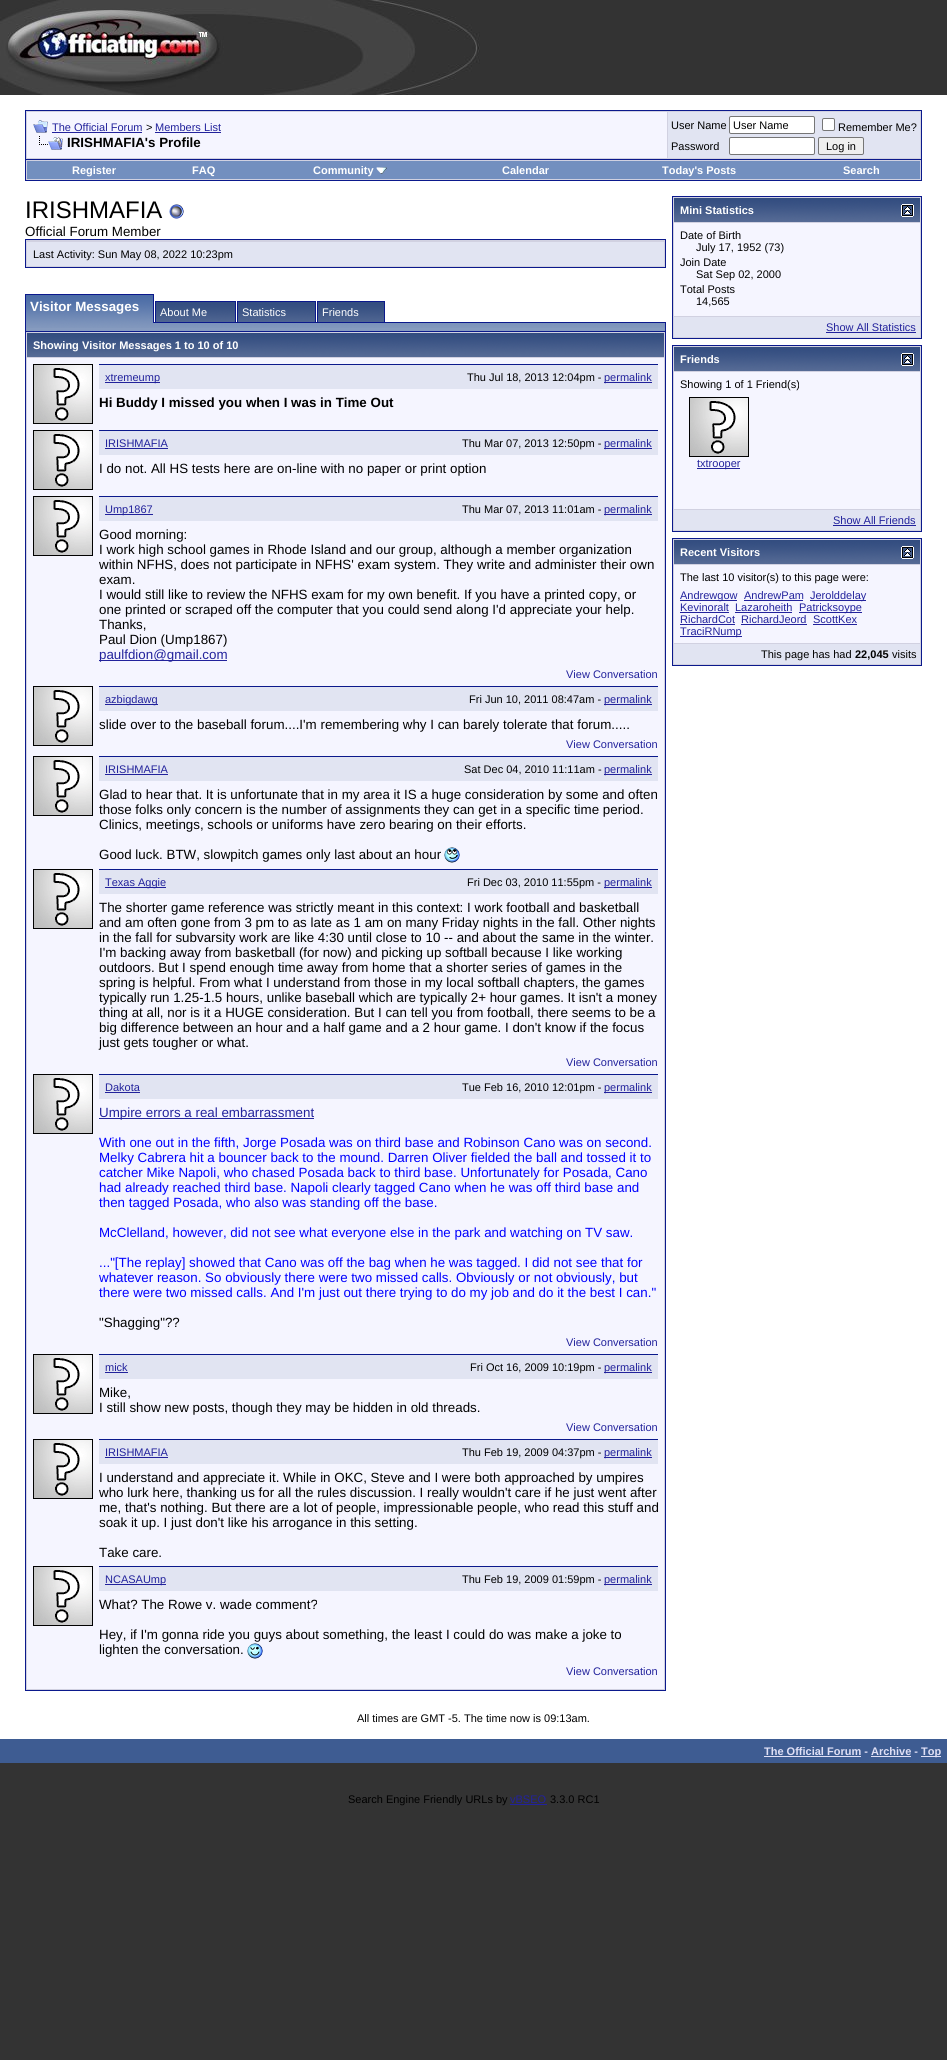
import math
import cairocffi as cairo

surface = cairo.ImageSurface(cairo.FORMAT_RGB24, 947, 2060)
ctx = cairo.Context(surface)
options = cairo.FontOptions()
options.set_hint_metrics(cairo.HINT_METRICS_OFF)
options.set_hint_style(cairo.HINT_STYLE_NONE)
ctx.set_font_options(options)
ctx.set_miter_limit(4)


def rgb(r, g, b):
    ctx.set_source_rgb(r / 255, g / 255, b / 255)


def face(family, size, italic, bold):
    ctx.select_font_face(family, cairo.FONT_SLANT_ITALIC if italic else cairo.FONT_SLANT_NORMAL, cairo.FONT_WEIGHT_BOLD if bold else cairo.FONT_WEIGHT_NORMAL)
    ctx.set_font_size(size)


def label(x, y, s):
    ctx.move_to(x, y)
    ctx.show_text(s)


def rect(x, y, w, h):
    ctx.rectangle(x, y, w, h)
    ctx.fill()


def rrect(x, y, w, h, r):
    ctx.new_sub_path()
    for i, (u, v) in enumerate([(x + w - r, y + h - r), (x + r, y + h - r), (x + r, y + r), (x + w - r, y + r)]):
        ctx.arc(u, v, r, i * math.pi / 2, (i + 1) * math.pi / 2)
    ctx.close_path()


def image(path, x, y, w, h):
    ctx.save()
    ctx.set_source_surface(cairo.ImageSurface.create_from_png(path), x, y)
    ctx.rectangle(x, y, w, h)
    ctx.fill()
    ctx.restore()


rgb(51, 51, 51)
ctx.paint()
image('image0.png', 0, 0, 480, 95)
rgb(255, 255, 255)
rect(0, 95, 947, 1644)
rgb(209, 209, 225)
ctx.rectangle(25.5, 110.5, 896, 49)
ctx.fill_preserve()
rgb(11, 25, 140)
ctx.set_line_width(1)
ctx.stroke()
rgb(245, 245, 255)
rect(27, 112, 640, 46)
image('image1.png', 33, 120, 15, 13)
face('Liberation Sans', 11, 0, 0)
rgb(34, 34, 156)
label(52, 131, 'The Official Forum')
rect(52, 132, 90, 1)
rgb(0, 0, 0)
label(146, 131, '>')
rgb(34, 34, 156)
label(155, 131, 'Members List')
rect(155, 132, 66, 1)
image('image2.png', 39, 136, 24, 14)
face('Liberation Sans', 13.35, 0, 1)
rgb(0, 0, 0)
label(67, 147, 'IRISHMAFIA\'s Profile')
rgb(225, 228, 242)
rect(668, 112, 252, 46)
face('Liberation Sans', 11, 0, 0)
rgb(0, 0, 0)
label(671, 129, 'User Name')
rgb(255, 255, 255)
rrect(729.5, 116.5, 85, 17, 1.5)
ctx.fill_preserve()
rgb(118, 118, 118)
ctx.stroke()
rgb(0, 0, 0)
label(733, 129, 'User Name')
rgb(255, 255, 255)
rrect(822.5, 118.5, 12, 12, 1.5)
ctx.fill_preserve()
rgb(118, 118, 118)
ctx.stroke()
rgb(0, 0, 0)
label(838, 131, 'Remember Me?')
label(671, 150, 'Password')
rgb(255, 255, 255)
rrect(729.5, 137.5, 85, 17, 1.5)
ctx.fill_preserve()
rgb(118, 118, 118)
ctx.stroke()
rgb(239, 239, 239)
rrect(818.5, 137.5, 45, 17, 1.5)
ctx.fill_preserve()
rgb(118, 118, 118)
ctx.stroke()
rgb(0, 0, 0)
label(826, 150, 'Log in')
rgb(209, 209, 225)
rect(26, 160, 895, 20)
rgb(11, 25, 140)
rect(921, 160, 1, 21)
rect(25, 180, 897, 1)
rect(25, 160, 1, 21)
rgb(115, 143, 191)
rect(27, 161, 893, 18)
face('Liberation Sans', 11, 0, 1)
rgb(255, 255, 255)
label(72, 174, 'Register')
label(192, 174, 'FAQ')
label(313, 174, 'Community')
image('image3.png', 376, 167, 11, 7)
label(502, 174, 'Calendar')
label(662, 174, 'Today\'s Posts')
label(843, 174, 'Search')
face('Liberation Sans', 24, 0, 0)
rgb(0, 0, 0)
label(25, 218, 'IRISHMAFIA')
image('image4.png', 169, 204, 15, 15)
face('Liberation Sans', 13.35, 0, 0)
label(25, 236, 'Official Forum Member')
rgb(209, 209, 225)
ctx.rectangle(25.5, 239.5, 640, 28)
ctx.fill_preserve()
rgb(11, 25, 140)
ctx.stroke()
rgb(225, 228, 242)
rect(27, 242, 637, 24)
face('Liberation Sans', 11, 0, 0)
rgb(0, 0, 0)
label(33, 258, 'Last Activity: Sun May 08, 2022 10:23pm')
image('image5.png', 26, 295, 127, 28)
rgb(11, 25, 140)
rect(25, 294, 129, 1)
rect(153, 294, 1, 29)
rect(25, 322, 1, 9)
rect(25, 294, 1, 29)
face('Liberation Sans', 13.35, 0, 1)
rgb(255, 255, 255)
label(30, 311, 'Visitor Messages')
image('image6.png', 156, 302, 79, 20)
rgb(11, 25, 140)
rect(154, 322, 512, 1)
ctx.rectangle(155.5, 301.5, 80, 21)
ctx.stroke()
face('Liberation Sans', 11, 0, 0)
rgb(255, 255, 255)
label(160, 316, 'About Me')
image('image7.png', 238, 302, 77, 20)
ctx.rectangle(237.5, 301.5, 78, 21)
rgb(11, 25, 140)
ctx.stroke()
rgb(255, 255, 255)
label(242, 316, 'Statistics')
image('image8.png', 318, 302, 66, 20)
ctx.rectangle(317.5, 301.5, 67, 21)
rgb(11, 25, 140)
ctx.stroke()
rgb(255, 255, 255)
label(322, 316, 'Friends')
rgb(134, 155, 191)
rect(26, 328, 639, 3)
image('image9.png', 26, 323, 639, 5)
rgb(11, 25, 140)
rect(665, 322, 1, 9)
rgb(209, 209, 225)
ctx.rectangle(25.5, 331.5, 640, 1359)
ctx.fill_preserve()
rgb(11, 25, 140)
ctx.stroke()
image('image10.png', 27, 333, 637, 24)
face('Liberation Sans', 11, 0, 1)
rgb(255, 255, 255)
label(33, 349, 'Showing Visitor Messages 1 to 10 of 10')
rgb(245, 245, 255)
rect(27, 358, 637, 1331)
image('image11.png', 33, 364, 60, 60)
rgb(11, 25, 140)
rect(99, 364, 559, 1)
rgb(225, 228, 242)
rect(99, 365, 559, 24)
rgb(34, 34, 156)
rect(105, 382, 55, 1)
face('Liberation Sans', 11, 0, 0)
label(105, 381, 'xtremeump')
rgb(0, 0, 0)
label(467, 381, 'Thu Jul 18, 2013 12:04pm -')
rgb(34, 34, 156)
rect(604, 382, 48, 1)
label(604, 381, 'permalink')
face('Liberation Sans', 13.35, 0, 1)
rgb(0, 0, 0)
label(99, 407, 'Hi Buddy I missed you when I was in Time Out')
image('image11.png', 33, 430, 60, 60)
rgb(11, 25, 140)
rect(99, 430, 559, 1)
rgb(225, 228, 242)
rect(99, 431, 559, 24)
face('Liberation Sans', 11, 0, 0)
rgb(34, 34, 156)
label(105, 447, 'IRISHMAFIA')
rect(105, 448, 63, 1)
rgb(0, 0, 0)
label(462, 447, 'Thu Mar 07, 2013 12:50pm -')
rgb(34, 34, 156)
rect(604, 448, 48, 1)
label(604, 447, 'permalink')
face('Liberation Sans', 13.35, 0, 0)
rgb(0, 0, 0)
label(99, 473, 'I do not. All HS tests here are on-line with no paper or print option')
image('image11.png', 33, 496, 60, 60)
rgb(11, 25, 140)
rect(99, 496, 559, 1)
rgb(225, 228, 242)
rect(99, 497, 559, 24)
rgb(34, 34, 156)
rect(105, 514, 48, 1)
face('Liberation Sans', 11, 0, 0)
label(105, 513, 'Ump1867')
rgb(0, 0, 0)
label(462, 513, 'Thu Mar 07, 2013 11:01am -')
rgb(34, 34, 156)
rect(604, 514, 48, 1)
label(604, 513, 'permalink')
face('Liberation Sans', 13.35, 0, 0)
rgb(0, 0, 0)
label(99, 539, 'Good morning:')
label(99, 554, 'I work high school games in Rhode Island and our group, although a member organization')
label(99, 569, 'within NFHS, does not participate in NFHS\' exam system. They write and administer their own')
label(99, 584, 'exam.')
label(99, 599, 'I would still like to review the NFHS exam for my own benefit. If you have a printed copy, or')
label(99, 614, 'one printed or scraped off the computer that you could send along I\'d appreciate your help.')
label(99, 629, 'Thanks,')
label(99, 644, 'Paul Dion (Ump1867)')
rgb(34, 34, 156)
rect(99, 660, 128, 1)
label(99, 659, 'paulfdion@gmail.com')
face('Liberation Sans', 11, 0, 0)
label(566, 678, 'View Conversation')
image('image11.png', 33, 686, 60, 60)
rgb(11, 25, 140)
rect(99, 686, 559, 1)
rgb(225, 228, 242)
rect(99, 687, 559, 24)
rgb(34, 34, 156)
rect(105, 704, 53, 1)
label(105, 703, 'azbigdawg')
rgb(0, 0, 0)
label(469, 703, 'Fri Jun 10, 2011 08:47am -')
rgb(34, 34, 156)
rect(604, 704, 48, 1)
label(604, 703, 'permalink')
face('Liberation Sans', 13.35, 0, 0)
rgb(0, 0, 0)
label(99, 729, 'slide over to the baseball forum....I\'m remembering why I can barely tolerate that forum.....')
face('Liberation Sans', 11, 0, 0)
rgb(34, 34, 156)
label(566, 748, 'View Conversation')
image('image11.png', 33, 756, 60, 60)
rgb(11, 25, 140)
rect(99, 756, 559, 1)
rgb(225, 228, 242)
rect(99, 757, 559, 24)
rgb(34, 34, 156)
label(105, 773, 'IRISHMAFIA')
rect(105, 774, 63, 1)
rgb(0, 0, 0)
label(464, 773, 'Sat Dec 04, 2010 11:11am -')
rgb(34, 34, 156)
rect(604, 774, 48, 1)
label(604, 773, 'permalink')
face('Liberation Sans', 13.35, 0, 0)
rgb(0, 0, 0)
label(99, 799, 'Glad to hear that. It is unfortunate that in my area it IS a huge consideration by some and often')
label(99, 814, 'those folks only concern is the number of assignments they can get in a specific time period.')
label(99, 829, 'Clinics, meetings, schools or uniforms have zero bearing on their efforts.')
label(99, 859, 'Good luck. BTW, slowpitch games only last about an hour')
image('image12.png', 444, 847, 16, 16)
image('image11.png', 33, 869, 60, 60)
rgb(11, 25, 140)
rect(99, 869, 559, 1)
rgb(225, 228, 242)
rect(99, 870, 559, 24)
rgb(34, 34, 156)
rect(105, 887, 61, 1)
face('Liberation Sans', 11, 0, 0)
label(105, 886, 'Texas Aggie')
rgb(0, 0, 0)
label(467, 886, 'Fri Dec 03, 2010 11:55pm -')
rgb(34, 34, 156)
rect(604, 887, 48, 1)
label(604, 886, 'permalink')
face('Liberation Sans', 13.35, 0, 0)
rgb(0, 0, 0)
label(99, 912, 'The shorter game reference was strictly meant in this context: I work football and basketball')
label(99, 927, 'and am often gone from 3 pm to as late as 1 am on many Friday nights in the fall. Other nights')
label(99, 942, 'in the fall for subvarsity work are like 4:30 until close to 10 -- and about the same in the winter.')
label(99, 957, 'I\'m backing away from basketball (for now) and picking up softball because I like working')
label(99, 972, 'outdoors. But I spend enough time away from home that a shorter series of games in the')
label(99, 987, 'spring is helpful. From what I understand from those in my local softball chapters, the games')
label(99, 1002, 'typically run 1.25-1.5 hours, unlike baseball which are typically 2+ hour games. It isn\'t a money')
label(99, 1017, 'thing at all, nor is it a HUGE consideration. But I can tell you from football, there seems to be a')
label(99, 1032, 'big difference between an hour and a half game and a 2 hour game. I don\'t know if the focus')
label(99, 1047, 'just gets tougher or what.')
face('Liberation Sans', 11, 0, 0)
rgb(34, 34, 156)
label(566, 1066, 'View Conversation')
image('image11.png', 33, 1074, 60, 60)
rgb(11, 25, 140)
rect(99, 1074, 559, 1)
rgb(225, 228, 242)
rect(99, 1075, 559, 24)
rgb(34, 34, 156)
label(105, 1091, 'Dakota')
rect(105, 1092, 35, 1)
rgb(0, 0, 0)
label(462, 1091, 'Tue Feb 16, 2010 12:01pm -')
rgb(34, 34, 156)
rect(604, 1092, 48, 1)
label(604, 1091, 'permalink')
rect(99, 1118, 215, 1)
face('Liberation Sans', 13.35, 0, 0)
label(99, 1117, 'Umpire errors a real embarrassment')
rgb(0, 0, 255)
label(99, 1147, 'With one out in the fifth, Jorge Posada was on third base and Robinson Cano was on second.')
label(99, 1162, 'Melky Cabrera hit a bouncer back to the mound. Darren Oliver fielded the ball and tossed it to')
label(99, 1177, 'catcher Mike Napoli, who chased Posada back to third base. Unfortunately for Posada, Cano')
label(99, 1192, 'had already reached third base. Napoli clearly tagged Cano when he was off third base and')
label(99, 1207, 'then tagged Posada, who also was standing off the base.')
label(99, 1237, 'McClelland, however, did not see what everyone else in the park and watching on TV saw.')
label(99, 1267, '..."[The replay] showed that Cano was off the bag when he was tagged. I did not see that for')
label(99, 1282, 'whatever reason. So obviously there were two missed calls. Obviously or not obviously, but')
label(99, 1297, 'there were two missed calls. And I\'m just out there trying to do my job and do it the best I can."')
rgb(0, 0, 0)
label(99, 1327, '"Shagging"??')
face('Liberation Sans', 11, 0, 0)
rgb(34, 34, 156)
label(566, 1346, 'View Conversation')
image('image11.png', 33, 1354, 60, 60)
rgb(11, 25, 140)
rect(99, 1354, 559, 1)
rgb(225, 228, 242)
rect(99, 1355, 559, 24)
rgb(34, 34, 156)
label(105, 1371, 'mick')
rect(105, 1372, 23, 1)
rgb(0, 0, 0)
label(470, 1371, 'Fri Oct 16, 2009 10:19pm -')
rgb(34, 34, 156)
rect(604, 1372, 48, 1)
label(604, 1371, 'permalink')
face('Liberation Sans', 13.35, 0, 0)
rgb(0, 0, 0)
label(99, 1397, 'Mike,')
label(99, 1412, 'I still show new posts, though they may be hidden in old threads.')
face('Liberation Sans', 11, 0, 0)
rgb(34, 34, 156)
label(566, 1431, 'View Conversation')
image('image11.png', 33, 1439, 60, 60)
rgb(11, 25, 140)
rect(99, 1439, 559, 1)
rgb(225, 228, 242)
rect(99, 1440, 559, 24)
rgb(34, 34, 156)
label(105, 1456, 'IRISHMAFIA')
rect(105, 1457, 63, 1)
rgb(0, 0, 0)
label(462, 1456, 'Thu Feb 19, 2009 04:37pm -')
rgb(34, 34, 156)
rect(604, 1457, 48, 1)
label(604, 1456, 'permalink')
face('Liberation Sans', 13.35, 0, 0)
rgb(0, 0, 0)
label(99, 1482, 'I understand and appreciate it. While in OKC, Steve and I were both approached by umpires')
label(99, 1497, 'who lurk here, thanking us for all the rules discussion. I really wouldn\'t care if he just went after')
label(99, 1512, 'me, that\'s nothing. But there are a lot of people, impressionable people, who read this stuff and')
label(99, 1527, 'soak it up. I just don\'t like his arrogance in this setting.')
label(99, 1557, 'Take care.')
image('image11.png', 33, 1566, 60, 60)
rgb(11, 25, 140)
rect(99, 1566, 559, 1)
rgb(225, 228, 242)
rect(99, 1567, 559, 24)
rgb(34, 34, 156)
rect(105, 1584, 61, 1)
face('Liberation Sans', 11, 0, 0)
label(105, 1583, 'NCASAUmp')
rgb(0, 0, 0)
label(462, 1583, 'Thu Feb 19, 2009 01:59pm -')
rgb(34, 34, 156)
rect(604, 1584, 48, 1)
label(604, 1583, 'permalink')
face('Liberation Sans', 13.35, 0, 0)
rgb(0, 0, 0)
label(99, 1609, 'What? The Rowe v. wade comment?')
label(99, 1639, 'Hey, if I\'m gonna ride you guys about something, the least I could do was make a joke to')
label(99, 1654, 'lighten the conversation.')
image('image13.png', 247, 1643, 16, 16)
face('Liberation Sans', 11, 0, 0)
rgb(34, 34, 156)
label(566, 1675, 'View Conversation')
rgb(209, 209, 225)
ctx.rectangle(672.5, 196.5, 249, 142)
ctx.fill_preserve()
rgb(11, 25, 140)
ctx.stroke()
image('image14.png', 674, 198, 246, 24)
face('Liberation Sans', 11, 0, 1)
rgb(255, 255, 255)
label(680, 214, 'Mini Statistics')
image('image15.png', 901, 204, 13, 13)
rgb(245, 245, 255)
rect(674, 223, 246, 93)
face('Liberation Sans', 11, 0, 0)
rgb(0, 0, 0)
label(680, 239, 'Date of Birth')
label(696, 251, 'July 17, 1952 (73)')
label(680, 266, 'Join Date')
label(696, 278, 'Sat Sep 02, 2000')
label(680, 293, 'Total Posts')
label(696, 305, '14,565')
rgb(225, 228, 242)
rect(674, 317, 246, 20)
rgb(34, 34, 156)
label(826, 331, 'Show All Statistics')
rect(826, 332, 90, 1)
rgb(209, 209, 225)
ctx.rectangle(672.5, 345.5, 249, 186)
ctx.fill_preserve()
rgb(11, 25, 140)
ctx.stroke()
image('image14.png', 674, 347, 246, 24)
face('Liberation Sans', 11, 0, 1)
rgb(255, 255, 255)
label(680, 363, 'Friends')
image('image15.png', 901, 353, 13, 13)
rgb(245, 245, 255)
rect(674, 372, 246, 137)
face('Liberation Sans', 11, 0, 0)
rgb(0, 0, 0)
label(680, 388, 'Showing 1 of 1 Friend(s)')
image('image11.png', 689, 397, 60, 60)
rgb(34, 34, 156)
rect(697, 468, 43, 1)
label(697, 467, 'txtrooper')
rgb(225, 228, 242)
rect(674, 510, 246, 20)
rgb(34, 34, 156)
label(833, 524, 'Show All Friends')
rect(833, 525, 83, 1)
rgb(209, 209, 225)
ctx.rectangle(672.5, 538.5, 249, 127)
ctx.fill_preserve()
rgb(11, 25, 140)
ctx.stroke()
image('image14.png', 674, 540, 246, 24)
face('Liberation Sans', 11, 0, 1)
rgb(255, 255, 255)
label(680, 556, 'Recent Visitors')
image('image15.png', 901, 546, 13, 13)
rgb(245, 245, 255)
rect(674, 565, 246, 78)
face('Liberation Sans', 11, 0, 0)
rgb(0, 0, 0)
label(680, 581, 'The last 10 visitor(s) to this page were:')
rgb(34, 34, 156)
rect(680, 600, 57, 1)
label(680, 599, 'Andrewgow')
label(744, 599, 'AndrewPam')
rect(744, 600, 59, 1)
rect(810, 600, 56, 1)
label(810, 599, 'Jerolddelay')
label(680, 611, 'Kevinoralt')
rect(680, 612, 49, 1)
label(735, 611, 'Lazaroheith')
rect(735, 612, 57, 1)
rect(799, 612, 63, 1)
label(799, 611, 'Patricksoype')
label(680, 623, 'RichardCot')
rect(680, 624, 55, 1)
label(741, 623, 'RichardJeord')
rect(741, 624, 66, 1)
label(813, 623, 'ScottKex')
rect(813, 624, 44, 1)
rect(680, 636, 62, 1)
label(680, 635, 'TraciRNump')
rgb(225, 228, 242)
rect(674, 644, 246, 20)
rgb(0, 0, 0)
label(761, 658, 'This page has had')
face('Liberation Sans', 11, 0, 1)
label(855, 658, '22,045')
face('Liberation Sans', 11, 0, 0)
label(892, 658, 'visits')
label(357, 1722, 'All times are GMT -5. The time now is 09:13am.')
rgb(62, 92, 146)
rect(0, 1739, 947, 24)
face('Liberation Sans', 11, 0, 1)
rgb(224, 224, 246)
label(764, 1755, 'The Official Forum - Archive -')
rect(764, 1756, 97, 1)
rect(871, 1756, 40, 1)
rect(921, 1756, 20, 1)
label(921, 1755, 'Top')
face('Liberation Sans', 11, 0, 0)
rgb(0, 0, 0)
label(348, 1803, 'Search Engine Friendly URLs by')
rgb(34, 34, 156)
label(510, 1803, 'vBSEO')
rect(510, 1804, 37, 1)
rgb(0, 0, 0)
label(550, 1803, '3.3.0 RC1')
surface.write_to_png('render.png')
